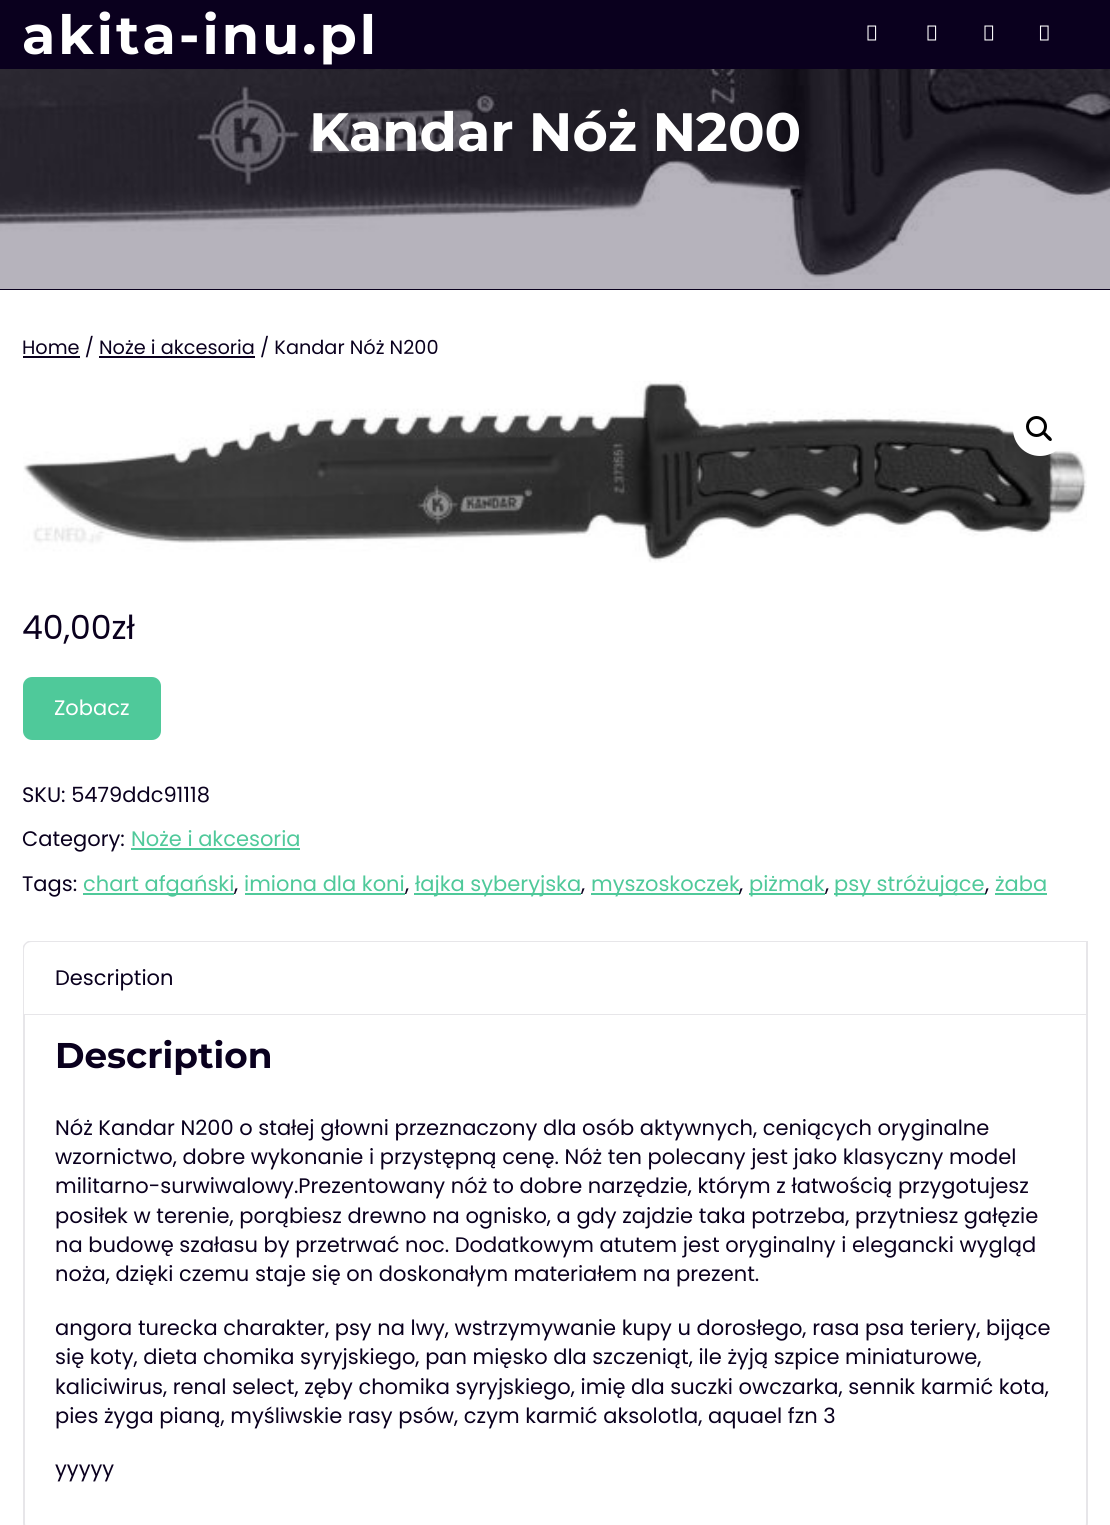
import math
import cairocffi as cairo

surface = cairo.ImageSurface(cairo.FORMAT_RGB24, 1110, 1525)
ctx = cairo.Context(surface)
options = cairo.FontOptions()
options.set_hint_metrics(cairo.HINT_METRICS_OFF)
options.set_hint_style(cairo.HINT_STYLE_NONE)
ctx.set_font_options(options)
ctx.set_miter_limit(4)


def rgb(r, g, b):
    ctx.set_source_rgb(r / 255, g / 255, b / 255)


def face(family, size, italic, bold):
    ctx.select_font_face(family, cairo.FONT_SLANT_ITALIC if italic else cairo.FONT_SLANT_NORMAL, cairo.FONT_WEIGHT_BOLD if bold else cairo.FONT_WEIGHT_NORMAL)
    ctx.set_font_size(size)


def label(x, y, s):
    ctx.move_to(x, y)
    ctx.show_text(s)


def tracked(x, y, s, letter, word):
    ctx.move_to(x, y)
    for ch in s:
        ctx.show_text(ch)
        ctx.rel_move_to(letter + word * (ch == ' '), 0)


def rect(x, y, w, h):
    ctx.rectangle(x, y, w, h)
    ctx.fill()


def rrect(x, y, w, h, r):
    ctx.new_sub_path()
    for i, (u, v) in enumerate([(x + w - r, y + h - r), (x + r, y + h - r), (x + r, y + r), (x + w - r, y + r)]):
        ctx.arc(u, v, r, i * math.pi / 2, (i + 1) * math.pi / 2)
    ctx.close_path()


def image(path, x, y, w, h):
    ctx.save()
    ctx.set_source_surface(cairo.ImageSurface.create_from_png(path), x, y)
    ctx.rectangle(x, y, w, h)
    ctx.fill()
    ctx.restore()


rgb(255, 255, 255)
ctx.paint()
rgb(10, 0, 30)
rect(0, 0, 1110, 69)
face('Montserrat', 54, 0, 1)
rgb(255, 255, 255)
tracked(22, 54, 'akita-inu.pl', 3, 0)
image('image0.png', 867, 25, 10, 16)
image('image0.png', 927, 25, 10, 16)
image('image0.png', 984, 25, 10, 16)
image('image1.png', 1039, 25, 10, 16)
rgb(10, 0, 30)
rect(0, 289, 1110, 1)
image('image2.png', 0, 69, 1110, 220)
rgb(255, 255, 255)
label(309, 151, 'Kandar Nóż N200')
rgb(10, 0, 30)
rect(23, 356, 57, 2)
face('Poppins', 19.3, 0, 0)
label(22, 354, 'Home / Noże i akcesoria / Kandar Nóż N200')
rect(99, 356, 156, 2)
image('image3.png', 23, 380, 1064, 183)
rgb(255, 255, 255)
ctx.arc(1040, 429, 27, 0, 2 * math.pi)
ctx.fill()
ctx.arc(1036.5, 426.5, 9, 0, 2 * math.pi)
rgb(0, 0, 0)
ctx.set_line_width(3)
ctx.stroke()
ctx.new_path()
ctx.move_to(1043, 432)
ctx.curve_to(1044.5, 430.5, 1047.5, 434.5, 1048.5, 435.5)
ctx.curve_to(1049.5, 436, 1053, 439, 1051.5, 440.5)
ctx.curve_to(1050, 442.5, 1047, 438.5, 1046, 437.5)
ctx.curve_to(1045.5, 436.5, 1041.5, 434, 1043, 432)
ctx.close_path()
ctx.fill()
face('Poppins', 33, 0, 0)
rgb(10, 0, 30)
label(22, 639, '40,00zł')
rgb(79, 201, 154)
rrect(23, 677, 138, 63, 9)
ctx.fill()
face('Poppins', 21, 0, 0)
rgb(255, 255, 255)
label(54, 715, 'Zobacz')
rgb(10, 0, 30)
label(22, 802, 'SKU: 5479ddc91118')
label(22, 846, 'Category:')
rgb(79, 201, 154)
label(131, 846, 'Noże i akcesoria')
rect(131, 848, 169, 2)
rgb(10, 0, 30)
label(22, 891, 'Tags:')
rgb(79, 201, 154)
rect(83, 893, 151, 2)
label(83, 891, 'chart afgański')
rgb(10, 0, 30)
label(234, 891, ',')
rgb(79, 201, 154)
label(244, 891, 'imiona dla koni')
rect(245, 893, 160, 2)
rgb(10, 0, 30)
label(405, 891, ',')
rgb(79, 201, 154)
rect(414, 893, 167, 2)
label(415, 891, 'łajka syberyjska')
rgb(10, 0, 30)
label(581, 891, ',')
rgb(79, 201, 154)
rect(591, 893, 149, 2)
label(591, 891, 'myszoskoczek')
rgb(10, 0, 30)
label(739, 891, ',')
rgb(79, 201, 154)
rect(749, 893, 76, 2)
label(749, 891, 'piżmak')
rgb(10, 0, 30)
label(825, 891, ',')
rgb(79, 201, 154)
rect(834, 893, 152, 2)
label(834, 891, 'psy stróżujące')
rgb(10, 0, 30)
label(985, 891, ',')
rgb(79, 201, 154)
label(995, 891, 'żaba')
rect(995, 893, 52, 2)
ctx.new_path()
ctx.move_to(24, 1014)
ctx.line_to(1087, 1014)
ctx.line_to(1087, 1523)
ctx.curve_to(1087, 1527.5, 1083.5, 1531, 1079, 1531)
ctx.line_to(32, 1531)
ctx.curve_to(27.5, 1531, 24, 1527.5, 24, 1523)
ctx.close_path()
rgb(231, 230, 233)
ctx.set_line_width(2)
ctx.stroke()
rgb(255, 255, 255)
ctx.new_path()
ctx.move_to(32, 941)
ctx.line_to(1088, 941)
ctx.line_to(1088, 1014)
ctx.line_to(23, 1014)
ctx.line_to(23, 950)
ctx.curve_to(23, 945, 27, 941, 32, 941)
ctx.close_path()
ctx.fill()
ctx.save()
ctx.rectangle(23, 941, 1065, 73)
ctx.clip()
rgb(231, 230, 233)
ctx.set_fill_rule(cairo.FILL_RULE_EVEN_ODD)
ctx.new_path()
ctx.move_to(32, 940)
ctx.line_to(1088, 940)
ctx.line_to(1088, 1014)
ctx.line_to(22, 1014)
ctx.line_to(22, 950)
ctx.curve_to(22, 945, 27, 940, 32, 940)
ctx.close_path()
ctx.move_to(32, 942)
ctx.line_to(1086, 942)
ctx.line_to(1086, 1014)
ctx.line_to(24, 1014)
ctx.line_to(24, 950)
ctx.curve_to(24, 945, 27, 942, 32, 942)
ctx.close_path()
ctx.fill()
ctx.restore()
rgb(10, 0, 30)
label(55, 985, 'Description')
face('Montserrat', 35.75, 0, 1)
label(55, 1068, 'Description')
face('Poppins', 21, 0, 0)
label(55, 1135, 'Nóż Kandar N200 o stałej głowni przeznaczony dla osób aktywnych, ceniących oryginalne')
label(55, 1164, 'wzornictwo, dobre wykonanie i przystępną cenę. Nóż ten polecany jest jako klasyczny model')
label(55, 1193, 'militarno-surwiwalowy.Prezentowany nóż to dobre narzędzie, którym z łatwością przygotujesz')
label(55, 1223, 'posiłek w terenie, porąbiesz drewno na ognisko, a gdy zajdzie taka potrzeba, przytniesz gałęzie')
label(55, 1252, 'na budowę szałasu by przetrwać noc. Dodatkowym atutem jest oryginalny i elegancki wygląd')
label(55, 1281, 'noża, dzięki czemu staje się on doskonałym materiałem na prezent.')
label(55, 1335, 'angora turecka charakter, psy na lwy, wstrzymywanie kupy u dorosłego, rasa psa teriery, bijące')
label(55, 1364, 'się koty, dieta chomika syryjskiego, pan mięsko dla szczeniąt, ile żyją szpice miniaturowe,')
label(55, 1394, 'kaliciwirus, renal select, zęby chomika syryjskiego, imię dla suczki owczarka, sennik karmić kota,')
label(55, 1423, 'pies żyga pianą, myśliwskie rasy psów, czym karmić aksolotla, aquael fzn 3')
label(55, 1476, 'yyyyy')
surface.write_to_png('render.png')
